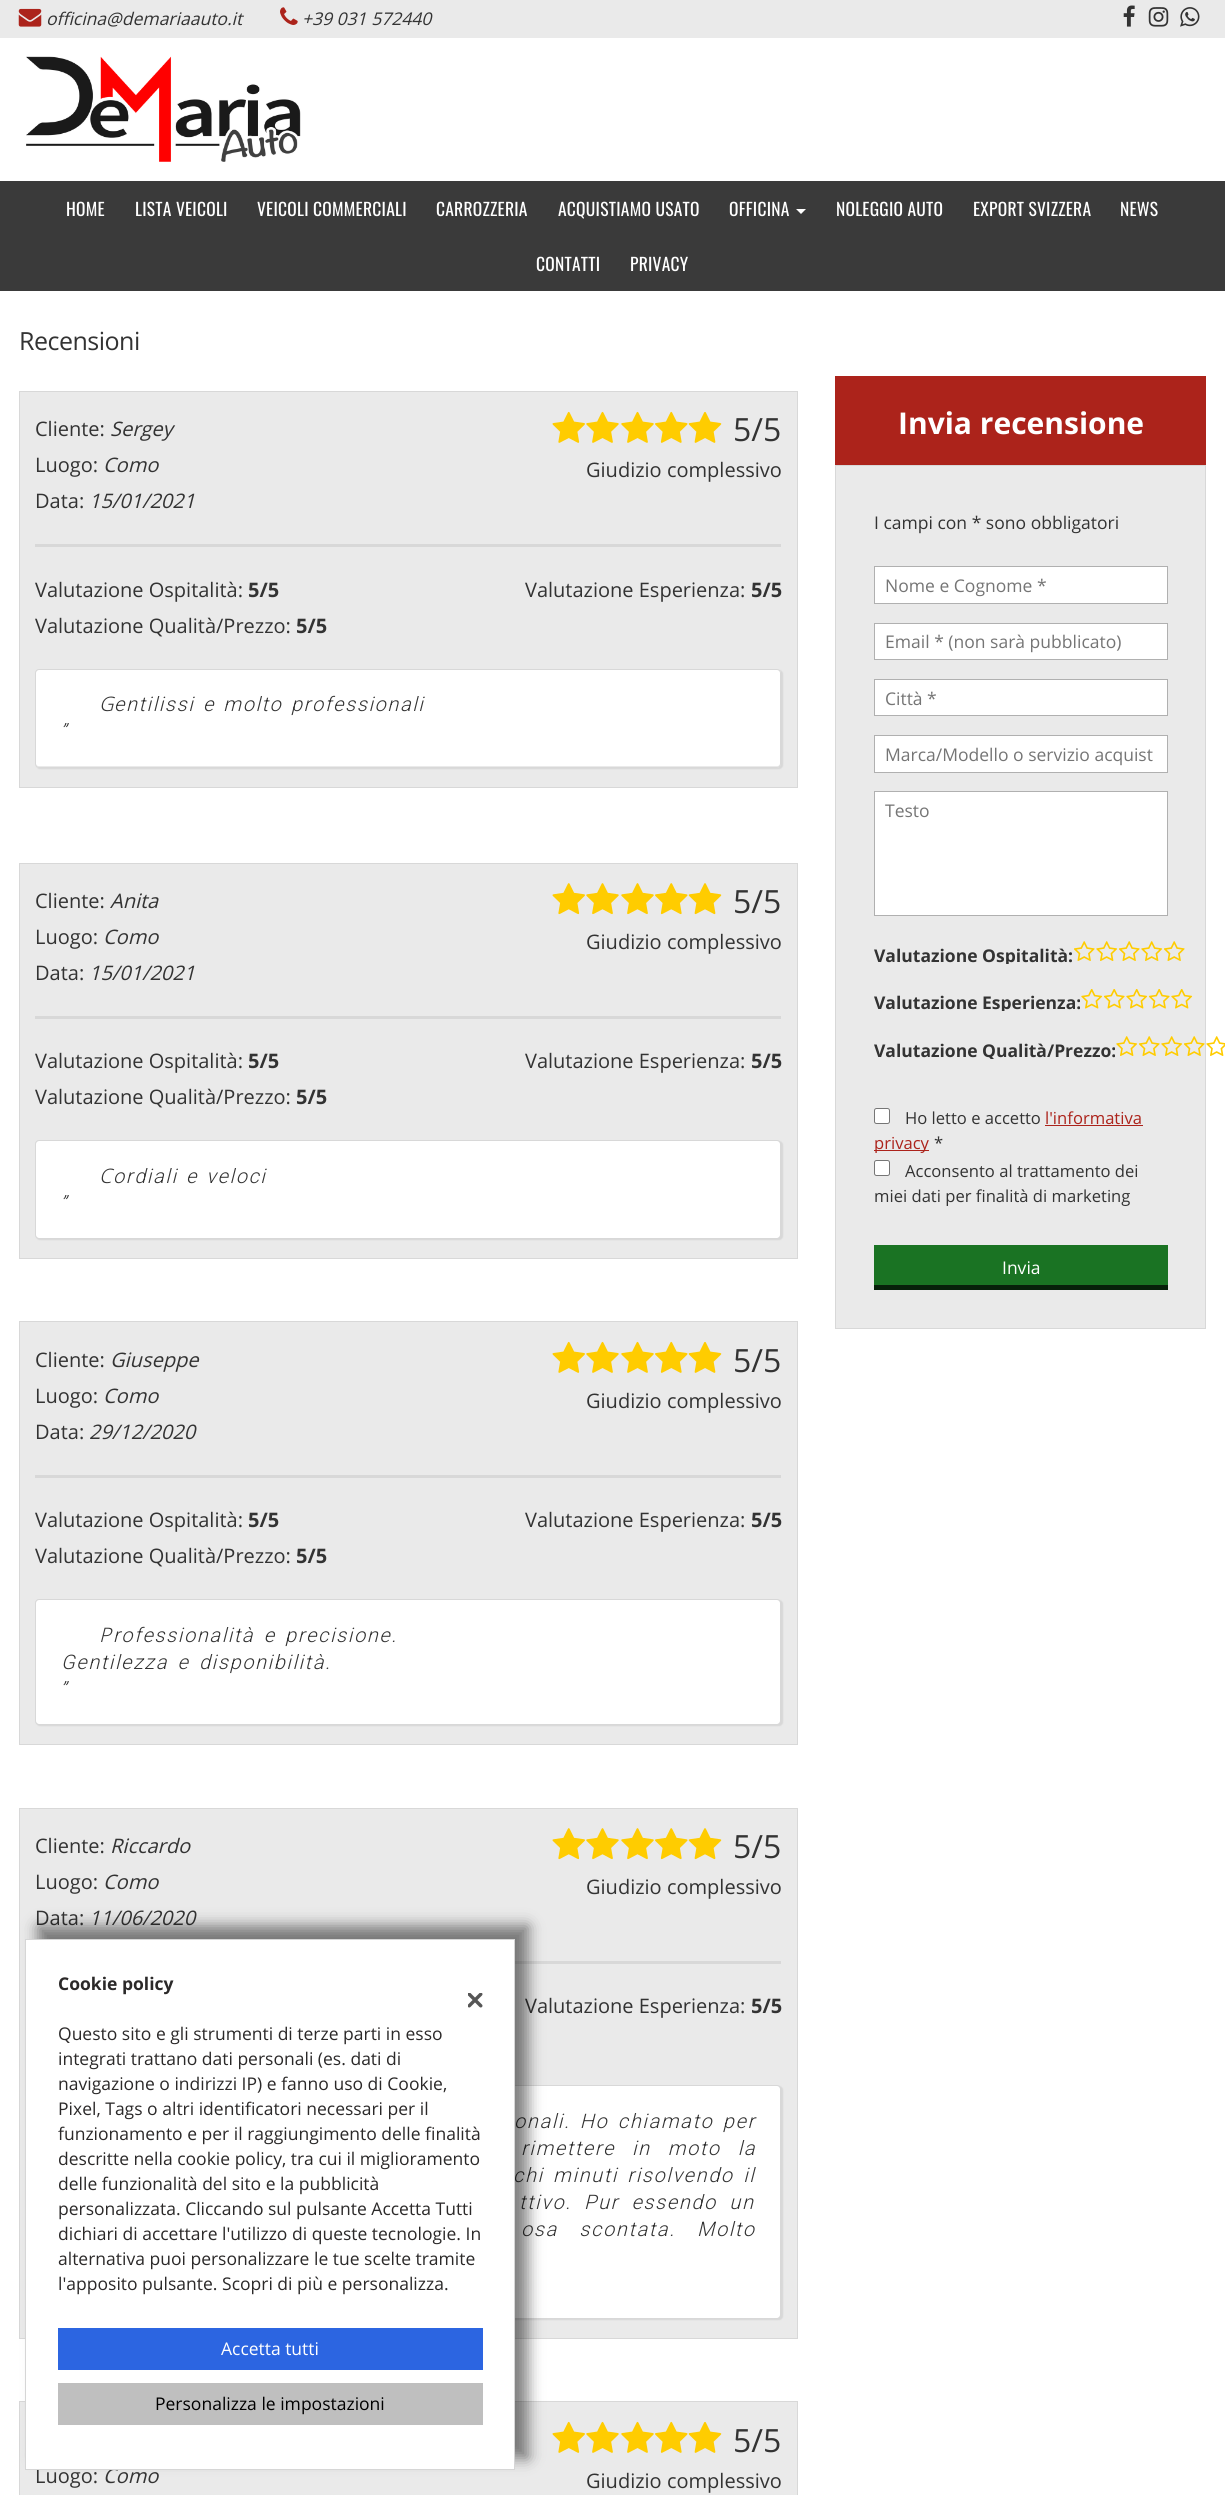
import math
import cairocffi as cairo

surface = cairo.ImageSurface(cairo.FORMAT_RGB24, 1225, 2495)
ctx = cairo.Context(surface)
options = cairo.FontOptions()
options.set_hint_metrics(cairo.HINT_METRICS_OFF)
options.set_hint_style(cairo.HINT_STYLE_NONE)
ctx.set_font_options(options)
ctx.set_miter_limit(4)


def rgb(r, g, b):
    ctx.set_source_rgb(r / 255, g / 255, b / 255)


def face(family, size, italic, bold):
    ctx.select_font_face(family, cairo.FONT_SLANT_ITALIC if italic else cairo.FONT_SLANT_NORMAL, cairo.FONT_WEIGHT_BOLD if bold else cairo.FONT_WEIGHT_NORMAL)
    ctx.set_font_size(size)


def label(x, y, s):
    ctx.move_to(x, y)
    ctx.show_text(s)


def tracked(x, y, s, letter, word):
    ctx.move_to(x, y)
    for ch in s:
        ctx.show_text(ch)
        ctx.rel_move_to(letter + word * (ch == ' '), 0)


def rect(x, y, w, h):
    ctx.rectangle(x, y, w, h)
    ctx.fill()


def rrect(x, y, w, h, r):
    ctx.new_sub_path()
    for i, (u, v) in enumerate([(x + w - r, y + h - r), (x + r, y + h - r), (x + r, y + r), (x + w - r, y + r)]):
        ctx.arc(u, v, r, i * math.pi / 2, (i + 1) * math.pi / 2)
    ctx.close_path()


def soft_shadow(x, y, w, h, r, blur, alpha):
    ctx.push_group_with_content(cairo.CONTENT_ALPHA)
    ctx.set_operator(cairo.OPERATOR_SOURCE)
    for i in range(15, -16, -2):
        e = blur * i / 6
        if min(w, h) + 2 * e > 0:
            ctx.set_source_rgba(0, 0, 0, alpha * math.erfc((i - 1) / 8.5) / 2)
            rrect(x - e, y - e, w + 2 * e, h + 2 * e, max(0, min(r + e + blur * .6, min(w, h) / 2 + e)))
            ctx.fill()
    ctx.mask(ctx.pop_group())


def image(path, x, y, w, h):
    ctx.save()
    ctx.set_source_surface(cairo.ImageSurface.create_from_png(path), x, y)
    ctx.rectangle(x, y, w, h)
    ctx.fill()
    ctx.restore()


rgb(255, 255, 255)
ctx.paint()
rgb(234, 234, 234)
rect(0, 0, 1225, 38)
image('image0.png', 18, 8, 24, 19)
face('Open Sans', 17.5, 1, 0)
rgb(51, 51, 51)
label(46, 25, 'officina@demariaauto.it')
image('image1.png', 280, 7, 18, 18)
label(302, 25, '+39 031 572440')
image('image2.png', 1123, 5, 12, 22)
image('image3.png', 1148, 7, 21, 20)
image('image4.png', 1180, 7, 20, 20)
image('image5.png', 26, 56, 275, 106)
rgb(58, 58, 58)
rect(0, 181, 1225, 110)
face('Oswald', 17.5, 0, 0)
rgb(255, 255, 255)
tracked(66, 216, 'HOME', 0.25, 0)
tracked(135, 216, 'LISTA VEICOLI', 0.25, 0)
tracked(257, 216, 'VEICOLI COMMERCIALI', 0.25, 0)
tracked(436, 216, 'CARROZZERIA', 0.25, 0)
tracked(558, 216, 'ACQUISTIAMO USATO', 0.25, 0)
tracked(729, 216, 'OFFICINA', 0.25, 0)
ctx.new_path()
ctx.move_to(796, 209)
ctx.line_to(806, 209)
ctx.line_to(801, 214)
ctx.close_path()
ctx.fill()
tracked(836, 216, 'NOLEGGIO AUTO', 0.25, 0)
tracked(973, 216, 'EXPORT SVIZZERA', 0.25, 0)
tracked(1120, 216, 'NEWS', 0.25, 0)
tracked(536, 271, 'CONTATTI', 0.25, 0)
tracked(630, 271, 'PRIVACY', 0.25, 0)
face('Open Sans', 25, 0, 0)
rgb(51, 51, 51)
tracked(19, 350, 'Recensioni', -0.5, 0)
rgb(234, 234, 234)
ctx.rectangle(19.5, 391.5, 778, 396)
ctx.fill_preserve()
rgb(216, 216, 216)
ctx.set_line_width(1)
ctx.stroke()
face('Open Sans', 20, 0, 0)
rgb(51, 51, 51)
label(35, 436, 'Cliente:')
face('Open Sans', 20, 1, 0)
label(110, 436, 'Sergey')
face('Open Sans', 20, 0, 0)
label(35, 472, 'Luogo:')
face('Open Sans', 20, 1, 0)
label(103, 472, 'Como')
face('Open Sans', 20, 0, 0)
label(35, 508, 'Data:')
face('Open Sans', 20, 1, 0)
label(89, 508, '15/01/2021')
image('image6.png', 552, 411, 33, 32)
image('image7.png', 586, 411, 33, 32)
image('image7.png', 621, 411, 33, 32)
image('image8.png', 655, 411, 33, 32)
image('image9.png', 688, 412, 34, 31)
face('Open Sans', 32, 0, 0)
label(733, 441, '5/5')
face('Open Sans', 20, 0, 0)
label(586, 477, 'Giudizio complessivo')
rgb(216, 216, 216)
rect(35, 544, 746, 3)
rgb(51, 51, 51)
label(35, 597, 'Valutazione Ospitalità:')
face('Open Sans', 20, 0, 1)
label(248, 597, '5/5')
face('Open Sans', 20, 0, 0)
label(525, 597, 'Valutazione Esperienza:')
face('Open Sans', 20, 0, 1)
label(751, 597, '5/5')
face('Open Sans', 20, 0, 0)
label(35, 633, 'Valutazione Qualità/Prezzo:')
face('Open Sans', 20, 0, 1)
label(296, 633, '5/5')
ctx.save()
ctx.set_fill_rule(cairo.FILL_RULE_EVEN_ODD)
ctx.new_path()
ctx.move_to(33, 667)
ctx.line_to(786, 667)
ctx.line_to(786, 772)
ctx.line_to(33, 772)
ctx.close_path()
ctx.move_to(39, 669)
ctx.line_to(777, 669)
ctx.curve_to(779, 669, 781, 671, 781, 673)
ctx.line_to(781, 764)
ctx.curve_to(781, 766, 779, 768, 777, 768)
ctx.line_to(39, 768)
ctx.curve_to(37, 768, 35, 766, 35, 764)
ctx.line_to(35, 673)
ctx.curve_to(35, 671, 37, 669, 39, 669)
ctx.close_path()
ctx.clip()
rgb(216, 216, 216)
soft_shadow(36, 670, 747, 99, 4, 0.5, 1)
ctx.restore()
rgb(255, 255, 255)
rrect(36, 670, 744, 96, 2.5)
ctx.fill()
rrect(35.5, 669.5, 745, 98, 3.5)
rgb(216, 216, 216)
ctx.stroke()
face('Noto Sans Light', 20, 1, 0)
rgb(51, 51, 51)
tracked(99, 711, 'G', 1.6, 0)
face('Roboto Light', 20, 1, 0)
tracked(114, 711, 'entilissi e molto professionali', 1.6, 2)
tracked(60, 738, '”', 1.6, 0)
rgb(234, 234, 234)
ctx.rectangle(19.5, 863.5, 778, 395)
ctx.fill_preserve()
rgb(216, 216, 216)
ctx.stroke()
face('Open Sans', 20, 0, 0)
rgb(51, 51, 51)
label(35, 908, 'Cliente:')
face('Open Sans', 20, 1, 0)
label(110, 908, 'Anita')
face('Open Sans', 20, 0, 0)
label(35, 944, 'Luogo:')
face('Open Sans', 20, 1, 0)
label(103, 944, 'Como')
face('Open Sans', 20, 0, 0)
label(35, 980, 'Data:')
face('Open Sans', 20, 1, 0)
label(89, 980, '15/01/2021')
image('image10.png', 552, 883, 33, 32)
image('image11.png', 586, 883, 33, 32)
image('image11.png', 621, 883, 33, 32)
image('image12.png', 655, 883, 33, 32)
image('image13.png', 688, 883, 34, 32)
face('Open Sans', 32, 0, 0)
label(733, 913, '5/5')
face('Open Sans', 20, 0, 0)
label(586, 949, 'Giudizio complessivo')
rgb(216, 216, 216)
rect(35, 1016, 746, 3)
rgb(51, 51, 51)
label(35, 1068, 'Valutazione Ospitalità:')
face('Open Sans', 20, 0, 1)
label(248, 1068, '5/5')
face('Open Sans', 20, 0, 0)
label(525, 1068, 'Valutazione Esperienza:')
face('Open Sans', 20, 0, 1)
label(751, 1068, '5/5')
face('Open Sans', 20, 0, 0)
label(35, 1104, 'Valutazione Qualità/Prezzo:')
face('Open Sans', 20, 0, 1)
label(296, 1104, '5/5')
rgb(216, 216, 216)
soft_shadow(36, 1141, 747, 99, 4, 0.5, 1)
rgb(255, 255, 255)
rrect(36, 1141, 744, 97, 2.5)
ctx.fill()
rrect(35.5, 1140.5, 745, 98, 3.5)
rgb(216, 216, 216)
ctx.stroke()
face('Noto Sans Light', 20, 1, 0)
rgb(51, 51, 51)
tracked(99, 1183, 'C', 1.6, 0)
face('Roboto Light', 20, 1, 0)
tracked(113, 1183, 'ordiali e veloci', 1.6, 2)
tracked(60, 1210, '”', 1.6, 0)
rgb(234, 234, 234)
ctx.rectangle(19.5, 1321.5, 778, 423)
ctx.fill_preserve()
rgb(216, 216, 216)
ctx.stroke()
face('Open Sans', 20, 0, 0)
rgb(51, 51, 51)
label(35, 1367, 'Cliente:')
face('Open Sans', 20, 1, 0)
label(110, 1367, 'Giuseppe')
face('Open Sans', 20, 0, 0)
label(35, 1403, 'Luogo:')
face('Open Sans', 20, 1, 0)
label(103, 1403, 'Como')
face('Open Sans', 20, 0, 0)
label(35, 1439, 'Data:')
face('Open Sans', 20, 1, 0)
label(89, 1439, '29/12/2020')
image('image6.png', 552, 1341, 33, 32)
image('image7.png', 586, 1341, 33, 32)
image('image7.png', 621, 1341, 33, 32)
image('image8.png', 655, 1341, 33, 32)
image('image9.png', 688, 1342, 34, 31)
face('Open Sans', 32, 0, 0)
label(733, 1372, '5/5')
face('Open Sans', 20, 0, 0)
label(586, 1408, 'Giudizio complessivo')
rgb(216, 216, 216)
rect(35, 1475, 746, 3)
rgb(51, 51, 51)
label(35, 1527, 'Valutazione Ospitalità:')
face('Open Sans', 20, 0, 1)
label(248, 1527, '5/5')
face('Open Sans', 20, 0, 0)
label(525, 1527, 'Valutazione Esperienza:')
face('Open Sans', 20, 0, 1)
label(751, 1527, '5/5')
face('Open Sans', 20, 0, 0)
label(35, 1563, 'Valutazione Qualità/Prezzo:')
face('Open Sans', 20, 0, 1)
label(296, 1563, '5/5')
rgb(216, 216, 216)
soft_shadow(36, 1600, 747, 126, 4, 0.5, 1)
rgb(255, 255, 255)
rrect(36, 1600, 744, 124, 2.5)
ctx.fill()
rrect(35.5, 1599.5, 745, 125, 3.5)
rgb(216, 216, 216)
ctx.stroke()
face('Noto Sans Light', 20, 1, 0)
rgb(51, 51, 51)
tracked(99, 1642, 'P', 1.6, 0)
face('Roboto Light', 20, 1, 0)
tracked(113, 1642, 'rofessionalità e precisione.', 1.6, 3)
tracked(61, 1669, 'Gentilezza e disponibilità.', 1.6, 3)
tracked(60, 1696, '”', 1.6, 0)
rgb(234, 234, 234)
ctx.rectangle(19.5, 1808.5, 778, 530)
ctx.fill_preserve()
rgb(216, 216, 216)
ctx.stroke()
face('Open Sans', 20, 0, 0)
rgb(51, 51, 51)
label(35, 1853, 'Cliente:')
face('Open Sans', 20, 1, 0)
label(110, 1853, 'Riccardo')
face('Open Sans', 20, 0, 0)
label(35, 1889, 'Luogo:')
face('Open Sans', 20, 1, 0)
label(103, 1889, 'Como')
face('Open Sans', 20, 0, 0)
label(35, 1925, 'Data:')
face('Open Sans', 20, 1, 0)
label(89, 1925, '11/06/2020')
image('image10.png', 552, 1828, 33, 32)
image('image11.png', 586, 1828, 33, 32)
image('image11.png', 621, 1828, 33, 32)
image('image12.png', 655, 1828, 33, 32)
image('image13.png', 688, 1828, 34, 32)
face('Open Sans', 32, 0, 0)
label(733, 1858, '5/5')
face('Open Sans', 20, 0, 0)
label(586, 1894, 'Giudizio complessivo')
rgb(216, 216, 216)
rect(515, 1961, 266, 3)
rgb(51, 51, 51)
label(525, 2013, 'Valutazione Esperienza:')
face('Open Sans', 20, 0, 1)
label(751, 2013, '5/5')
rgb(216, 216, 216)
soft_shadow(36, 2086, 747, 234, 4, 0.5, 1)
rgb(255, 255, 255)
rrect(36, 2086, 744, 232, 2.5)
ctx.fill()
rrect(35.5, 2085.5, 745, 233, 3.5)
rgb(216, 216, 216)
ctx.stroke()
face('Roboto Light', 20, 1, 0)
rgb(51, 51, 51)
tracked(514, 2128, 'onali. Ho chiamato per', 1.6, 3)
tracked(521, 2155, 'rimettere in moto la', 1.6, 10.5)
tracked(513, 2182, 'chi minuti risolvendo il', 1.6, 3)
tracked(519, 2209, 'ttivo. Pur essendo un', 1.6, 6)
tracked(521, 2236, 'osa scontata. Molto', 1.6, 15)
rgb(234, 234, 234)
ctx.rectangle(19.5, 2401.5, 778, 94)
ctx.fill_preserve()
rgb(216, 216, 216)
ctx.stroke()
face('Open Sans', 20, 0, 0)
rgb(51, 51, 51)
label(35, 2483, 'Luogo:')
face('Open Sans', 20, 1, 0)
label(103, 2483, 'Como')
image('image6.png', 552, 2421, 33, 32)
image('image7.png', 586, 2421, 33, 32)
image('image7.png', 621, 2421, 33, 32)
image('image8.png', 655, 2421, 33, 32)
image('image9.png', 688, 2422, 34, 31)
face('Open Sans', 32, 0, 0)
label(733, 2452, '5/5')
face('Open Sans', 20, 0, 0)
label(586, 2488, 'Giudizio complessivo')
rgb(172, 35, 27)
rect(835, 376, 371, 89)
face('Open Sans', 30, 0, 1)
rgb(255, 255, 255)
label(898, 434, 'Invia recensione')
rgb(234, 234, 234)
ctx.rectangle(835.5, 465.5, 370, 863)
ctx.fill_preserve()
rgb(216, 216, 216)
ctx.stroke()
face('Open Sans', 17.5, 0, 0)
rgb(51, 51, 51)
label(874, 529, 'I campi con * sono obbligatori')
rgb(255, 255, 255)
ctx.rectangle(874.5, 566.5, 293, 37)
ctx.fill_preserve()
rgb(176, 176, 176)
ctx.stroke()
rgb(117, 117, 117)
label(885, 592, 'Nome e Cognome *')
rgb(255, 255, 255)
ctx.rectangle(874.5, 623.5, 293, 36)
ctx.fill_preserve()
rgb(176, 176, 176)
ctx.stroke()
rgb(117, 117, 117)
label(885, 648, 'Email * (non sarà pubblicato)')
rgb(255, 255, 255)
ctx.rectangle(874.5, 679.5, 293, 36)
ctx.fill_preserve()
rgb(176, 176, 176)
ctx.stroke()
rgb(117, 117, 117)
label(885, 705, 'Città *')
rgb(255, 255, 255)
ctx.rectangle(874.5, 735.5, 293, 37)
ctx.fill_preserve()
rgb(176, 176, 176)
ctx.stroke()
rgb(117, 117, 117)
label(885, 761, 'Marca/Modello o servizio acquist')
rgb(255, 255, 255)
ctx.rectangle(874.5, 791.5, 293, 124)
ctx.fill_preserve()
rgb(176, 176, 176)
ctx.stroke()
rgb(117, 117, 117)
label(885, 817, 'Testo')
ctx.save()
ctx.rectangle(874, 946, 200, 18)
ctx.clip()
face('Open Sans', 17.5, 0, 1)
rgb(51, 51, 51)
label(874, 962, 'Valutazione Ospitalità:')
ctx.restore()
image('image14.png', 1074, 941, 21, 20)
image('image15.png', 1096, 941, 22, 20)
image('image14.png', 1119, 941, 21, 20)
image('image15.png', 1141, 941, 22, 20)
image('image14.png', 1164, 941, 21, 20)
ctx.save()
ctx.rectangle(874, 994, 207, 17)
ctx.clip()
face('Open Sans', 17.5, 0, 1)
rgb(51, 51, 51)
label(874, 1009, 'Valutazione Esperienza:')
ctx.restore()
image('image16.png', 1081, 989, 22, 20)
image('image17.png', 1104, 989, 21, 20)
image('image16.png', 1126, 989, 22, 20)
image('image17.png', 1149, 989, 21, 20)
image('image16.png', 1171, 989, 22, 20)
ctx.save()
ctx.rectangle(874, 1041, 242, 18)
ctx.clip()
face('Open Sans', 17.5, 0, 1)
rgb(51, 51, 51)
label(874, 1057, 'Valutazione Qualità/Prezzo:')
ctx.restore()
image('image15.png', 1116, 1036, 22, 20)
image('image14.png', 1139, 1036, 21, 20)
image('image15.png', 1161, 1036, 22, 20)
image('image14.png', 1184, 1036, 21, 20)
image('image18.png', 1206, 1036, 19, 20)
rgb(255, 255, 255)
rrect(874.5, 1108.5, 15, 15, 2)
ctx.fill_preserve()
rgb(118, 118, 118)
ctx.stroke()
face('Open Sans', 16.6, 0, 0)
rgb(51, 51, 51)
label(905, 1124, 'Ho letto e accetto')
rgb(172, 35, 27)
label(1045, 1124, 'l\'informativa')
rect(1045, 1125, 98, 1)
rect(874, 1150, 55, 1)
label(874, 1149, 'privacy')
rgb(51, 51, 51)
label(934, 1149, '*')
rgb(255, 255, 255)
rrect(874.5, 1160.5, 15, 15, 2)
ctx.fill_preserve()
rgb(118, 118, 118)
ctx.stroke()
rgb(51, 51, 51)
label(905, 1177, 'Acconsento al trattamento dei')
label(874, 1202, 'miei dati per finalità di marketing')
rgb(26, 115, 35)
rect(874, 1245, 294, 40)
rgb(7, 32, 10)
rect(874, 1285, 294, 5)
face('Open Sans', 17.5, 0, 0)
rgb(255, 255, 255)
label(1002, 1274, 'Invia')
rgb(0, 0, 0)
soft_shadow(38, 1926, 490, 532, 0, 7.5, 0.5)
rgb(255, 255, 255)
ctx.rectangle(25.5, 1939.5, 489, 530)
ctx.fill_preserve()
rgb(214, 214, 214)
ctx.stroke()
face('Open Sans', 17.5, 0, 1)
rgb(43, 41, 41)
label(58, 1990, 'Cookie policy')
face('Open Sans', 17.5, 0, 0)
label(58, 2040, 'Questo sito e gli strumenti di terze parti in esso')
label(58, 2065, 'integrati trattano dati personali (es. dati di')
label(58, 2090, 'navigazione o indirizzi IP) e fanno uso di Cookie,')
label(58, 2115, 'Pixel, Tags o altri identificatori necessari per il')
label(58, 2140, 'funzionamento e per il raggiungimento delle finalità')
label(58, 2165, 'descritte nella cookie policy, tra cui il miglioramento')
label(58, 2190, 'delle funzionalità del sito e la pubblicità')
label(58, 2215, 'personalizzata. Cliccando sul pulsante Accetta Tutti')
label(58, 2240, 'dichiari di accettare l\'utilizzo di queste tecnologie. In')
label(58, 2265, 'alternativa puoi personalizzare le tue scelte tramite')
label(58, 2290, 'l\'apposito pulsante. Scopri di più e personalizza.')
image('image19.png', 468, 1993, 15, 15)
rgb(44, 101, 225)
rect(58, 2328, 425, 42)
rgb(255, 255, 255)
label(221, 2355, 'Accetta tutti')
rgb(191, 191, 191)
rect(58, 2383, 425, 42)
rgb(0, 0, 0)
label(155, 2410, 'Personalizza le impostazioni')
surface.write_to_png('render.png')
